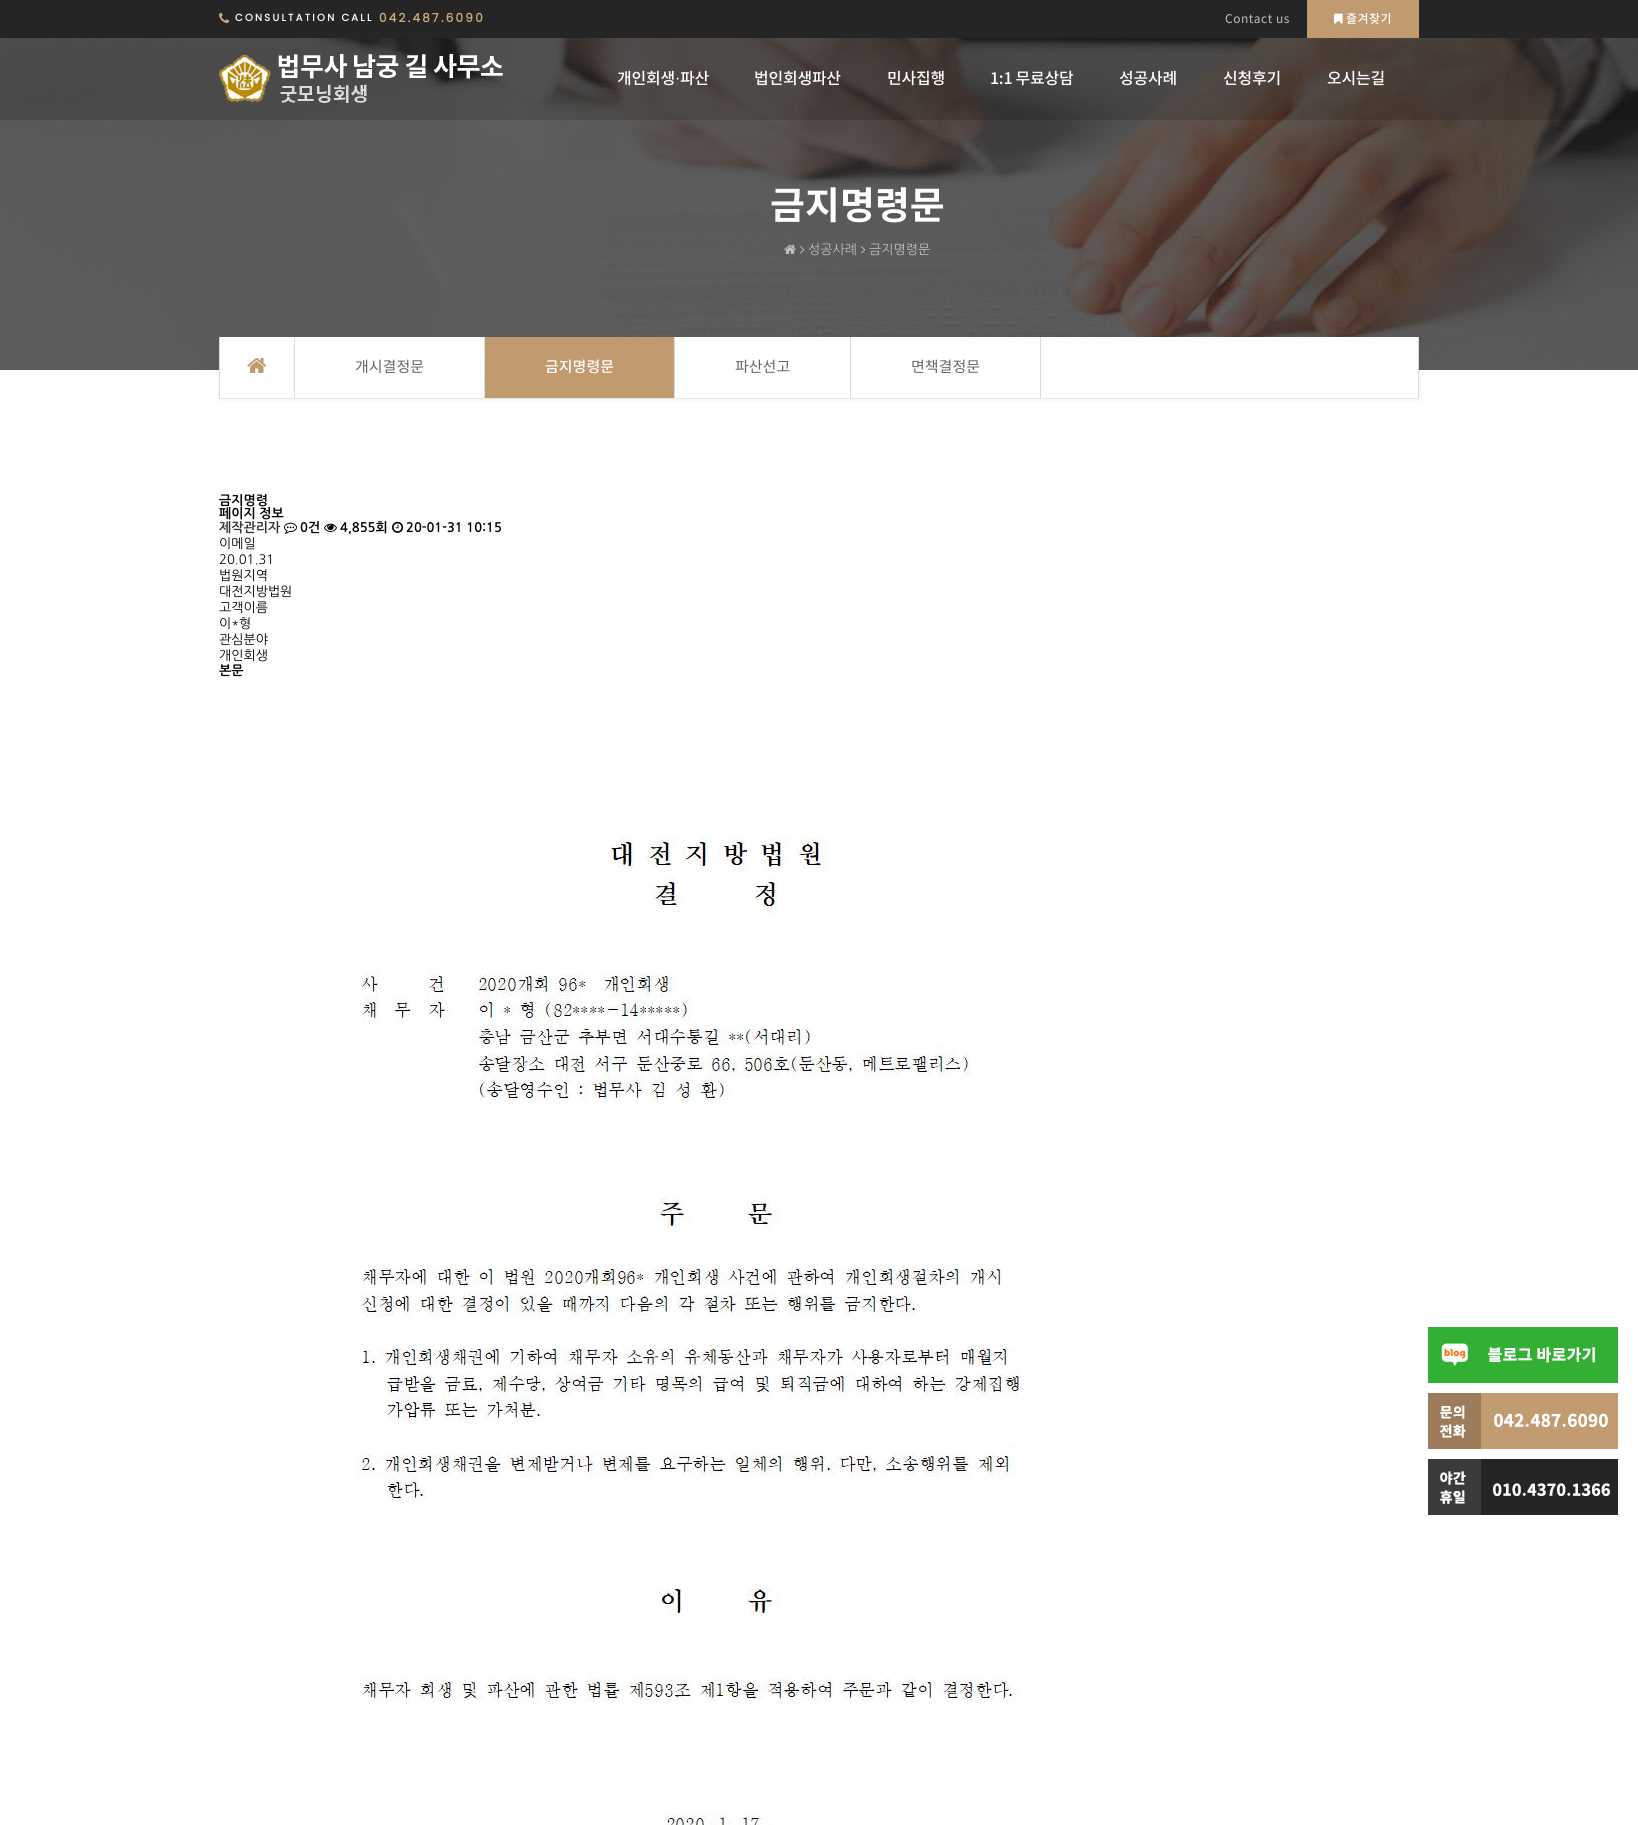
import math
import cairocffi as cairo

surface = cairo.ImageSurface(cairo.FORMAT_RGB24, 1638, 1825)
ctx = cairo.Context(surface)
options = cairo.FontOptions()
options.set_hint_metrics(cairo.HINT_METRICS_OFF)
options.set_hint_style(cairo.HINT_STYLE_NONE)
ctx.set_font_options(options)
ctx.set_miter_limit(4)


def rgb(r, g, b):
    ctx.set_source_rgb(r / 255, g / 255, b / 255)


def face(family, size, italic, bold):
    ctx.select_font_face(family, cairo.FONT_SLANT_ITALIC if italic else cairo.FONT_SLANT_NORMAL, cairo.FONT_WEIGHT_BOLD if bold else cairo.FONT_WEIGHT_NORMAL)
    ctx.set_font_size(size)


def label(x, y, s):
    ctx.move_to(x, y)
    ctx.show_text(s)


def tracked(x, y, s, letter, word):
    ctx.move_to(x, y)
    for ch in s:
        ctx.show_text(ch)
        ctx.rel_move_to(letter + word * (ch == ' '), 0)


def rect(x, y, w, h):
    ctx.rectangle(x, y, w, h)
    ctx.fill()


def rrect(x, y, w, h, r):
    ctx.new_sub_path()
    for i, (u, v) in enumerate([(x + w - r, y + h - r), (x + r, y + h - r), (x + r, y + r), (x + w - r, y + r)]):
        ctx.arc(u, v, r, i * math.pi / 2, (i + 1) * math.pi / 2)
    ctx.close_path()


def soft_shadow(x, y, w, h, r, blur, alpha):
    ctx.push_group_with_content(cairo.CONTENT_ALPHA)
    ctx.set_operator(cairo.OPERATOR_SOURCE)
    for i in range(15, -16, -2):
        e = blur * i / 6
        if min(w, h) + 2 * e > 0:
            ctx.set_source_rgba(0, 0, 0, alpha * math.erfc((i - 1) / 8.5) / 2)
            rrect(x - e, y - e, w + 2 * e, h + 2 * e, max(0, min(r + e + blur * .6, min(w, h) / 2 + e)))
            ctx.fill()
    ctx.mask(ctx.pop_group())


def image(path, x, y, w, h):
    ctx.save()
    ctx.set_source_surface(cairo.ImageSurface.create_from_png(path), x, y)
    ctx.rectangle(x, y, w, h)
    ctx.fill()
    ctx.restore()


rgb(255, 255, 255)
ctx.paint()
image('image0.png', 0, 38, 1638, 332)
rgb(37, 37, 37)
rect(0, 0, 1638, 38)
image('image1.png', 219, 12, 11, 11)
face('Poppins', 10, 0, 1)
rgb(255, 255, 255)
tracked(235, 21, 'CONSULTATION CALL', 2.25, 0)
face('Poppins', 12, 0, 1)
rgb(208, 169, 126)
tracked(379, 22, '042.487.6090', 2.25, 0)
face('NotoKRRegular', 12, 0, 0)
rgb(190, 190, 190)
tracked(1225, 23, 'Contact us', 0.5, 0)
rgb(194, 154, 111)
rect(1307, 0, 112, 38)
image('image2.png', 1334, 13, 9, 11)
face('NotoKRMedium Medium', 12, 0, 0)
rgb(255, 255, 255)
tracked(1346, 23, '즐겨찾기', 0.5, 0)
ctx.set_source_rgba(0, 0, 0, 0.16)
rect(0, 38, 1638, 82)
image('image3.png', 219, 54, 284, 49)
face('NotoKRMedium Medium', 16, 0, 0)
rgb(255, 255, 255)
tracked(617, 84, '개인회생', -0.25, 0)
face('Liberation Serif', 16, 0, 0)
tracked(675, 84, '·', -0.25, 0)
face('NotoKRMedium Medium', 16, 0, 0)
tracked(680, 84, '파산', -0.25, 0)
tracked(754, 84, '법인회생파산', -0.25, 0)
tracked(887, 84, '민사집행', -0.25, 0)
tracked(990, 84, '1:1 무료상담', -0.25, 0)
tracked(1119, 84, '성공사례', -0.25, 0)
tracked(1223, 84, '신청후기', -0.25, 0)
tracked(1327, 84, '오시는길', -0.25, 0)
face('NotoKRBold', 38, 0, 1)
label(770, 219, '금지명령문')
image('image4.png', 784, 244, 12, 10)
image('image5.png', 800, 246, 5, 8)
face('NanumGothic', 13, 0, 0)
rgb(190, 190, 190)
label(808, 254, '성공사례')
image('image6.png', 861, 246, 5, 8)
label(869, 254, '금지명령문')
rgb(0, 0, 0)
soft_shadow(219, 337, 1202, 64, 0, 2.5, 0.04)
rgb(255, 255, 255)
rect(220, 337, 1198, 61)
rgb(231, 231, 231)
rect(219, 398, 1200, 1)
rgb(219, 219, 219)
rect(294, 337, 1, 61)
rect(219, 337, 1, 61)
image('image7.png', 247, 358, 20, 15)
rect(1418, 337, 1, 61)
rect(484, 337, 1, 61)
face('NotoKRRegular', 15, 0, 0)
rgb(102, 102, 102)
label(355, 372, '개시결정문')
rgb(219, 219, 219)
rect(674, 337, 1, 61)
rgb(194, 154, 111)
rect(485, 337, 189, 61)
face('NotoKRMedium Medium', 15, 0, 0)
rgb(255, 255, 255)
label(545, 372, '금지명령문')
rgb(219, 219, 219)
rect(850, 337, 1, 61)
face('NotoKRRegular', 15, 0, 0)
rgb(102, 102, 102)
label(735, 372, '파산선고')
rgb(219, 219, 219)
rect(1040, 337, 1, 61)
rgb(102, 102, 102)
label(911, 372, '면책결정문')
face('NanumGothic', 13, 0, 1)
rgb(0, 0, 0)
label(219, 505, '금지명령')
label(219, 518, '페이지 정보')
rgb(51, 51, 51)
label(219, 532, '제작관리자')
image('image8.png', 284, 522, 13, 12)
rgb(0, 0, 0)
label(300, 532, '0건')
image('image9.png', 324, 523, 13, 9)
label(340, 532, '4,855회')
image('image10.png', 392, 521, 12, 12)
label(406, 532, '20-01-31 10:15')
face('NanumGothic', 13, 0, 0)
label(219, 548, '이메일')
label(219, 564, '20.01.31')
label(219, 580, '법원지역')
label(219, 596, '대전지방법원')
label(219, 612, '고객이름')
label(219, 628, '이*형')
label(219, 644, '관심분야')
label(219, 660, '개인회생')
face('NanumGothic', 13, 0, 1)
label(219, 675, '본문')
image('image11.png', 355, 836, 664, 989)
image('image12.png', 1428, 1327, 190, 56)
image('image13.png', 1428, 1393, 190, 56)
image('image14.png', 1428, 1459, 190, 56)
surface.write_to_png('render.png')
